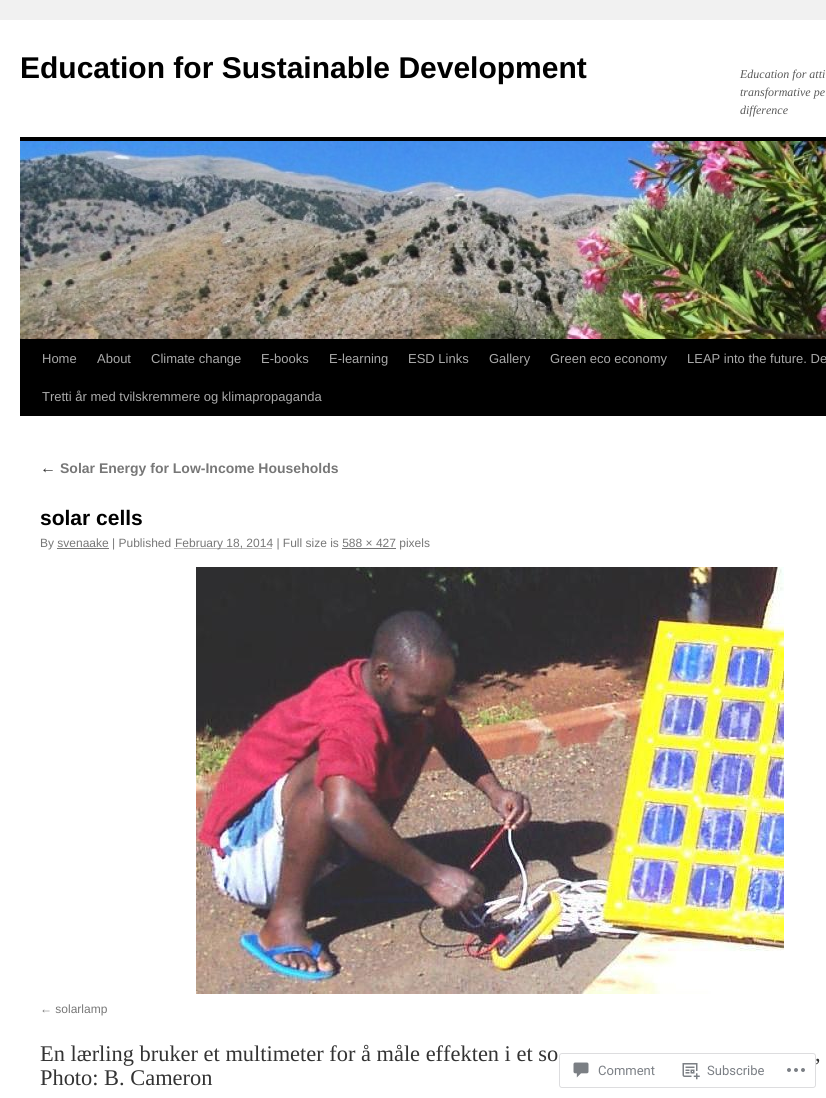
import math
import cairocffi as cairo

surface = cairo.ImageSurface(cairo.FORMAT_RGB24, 826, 1098)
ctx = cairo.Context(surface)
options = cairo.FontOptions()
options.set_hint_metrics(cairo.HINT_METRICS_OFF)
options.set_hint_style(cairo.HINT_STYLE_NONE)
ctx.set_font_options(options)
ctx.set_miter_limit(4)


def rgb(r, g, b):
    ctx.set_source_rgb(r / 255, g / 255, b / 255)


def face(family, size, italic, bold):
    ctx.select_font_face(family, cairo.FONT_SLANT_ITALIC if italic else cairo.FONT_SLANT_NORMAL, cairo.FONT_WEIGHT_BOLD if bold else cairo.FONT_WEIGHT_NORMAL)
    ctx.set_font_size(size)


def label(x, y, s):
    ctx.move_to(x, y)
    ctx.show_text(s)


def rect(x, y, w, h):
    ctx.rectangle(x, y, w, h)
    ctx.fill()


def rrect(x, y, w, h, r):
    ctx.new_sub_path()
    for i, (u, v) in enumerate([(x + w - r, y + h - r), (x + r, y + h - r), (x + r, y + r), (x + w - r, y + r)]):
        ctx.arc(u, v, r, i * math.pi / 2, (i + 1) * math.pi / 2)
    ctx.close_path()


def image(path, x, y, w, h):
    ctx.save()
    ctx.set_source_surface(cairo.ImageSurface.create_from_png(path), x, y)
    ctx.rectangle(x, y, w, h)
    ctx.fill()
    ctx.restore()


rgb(241, 241, 241)
ctx.paint()
rgb(255, 255, 255)
rect(0, 20, 826, 1078)
face('Liberation Sans', 30, 0, 1)
rgb(0, 0, 0)
label(20, 78, 'Education for Sustainable Development')
face('Liberation Serif', 12, 1, 0)
rgb(89, 89, 89)
label(740, 78, 'Education for atti')
label(740, 96, 'transformative pe')
label(740, 114, 'difference')
rgb(0, 0, 0)
rect(20, 137, 806, 4)
rect(20, 339, 806, 77)
image('image0.png', 20, 141, 806, 198)
face('Liberation Sans', 13, 0, 0)
rgb(170, 170, 170)
label(42, 363, 'Home')
label(97, 363, 'About')
label(151, 363, 'Climate change')
label(261, 363, 'E-books')
label(329, 363, 'E-learning')
label(408, 363, 'ESD Links')
label(489, 363, 'Gallery')
label(550, 363, 'Green eco economy')
label(687, 363, 'LEAP into the future. De')
label(42, 401, 'Tretti år med tvilskremmere og klimapropaganda')
face('Liberation Serif', 16, 1, 0)
rgb(51, 51, 51)
label(40, 473, '←')
face('Liberation Sans', 14, 0, 1)
rgb(119, 119, 119)
label(60, 473, 'Solar Energy for Low-Income Households')
face('Liberation Sans', 21, 0, 1)
rgb(0, 0, 0)
label(40, 525, 'solar cells')
face('Liberation Sans', 12, 0, 0)
rgb(119, 119, 119)
label(40, 547, 'By svenaake | Published')
ctx.new_path()
ctx.move_to(174.5, 548.5)
ctx.line_to(272.5, 548.5)
ctx.set_line_width(1)
ctx.set_dash([1, 1])
ctx.stroke()
label(175, 547, 'February 18, 2014 | Full size is 588 × 427 pixels')
rect(57, 548, 52, 1)
rect(342, 548, 54, 1)
image('image1.png', 196, 567, 588, 427)
label(40, 1013, '← solarlamp')
face('Liberation Serif', 22.4, 0, 0)
rgb(51, 51, 51)
label(40, 1061, 'En lærling bruker et multimeter for å måle effekten i et so')
label(815, 1061, ',')
label(40, 1085, 'Photo: B. Cameron')
ctx.set_source_rgba(1, 1, 1, 0.98)
rrect(559, 1053, 257, 35, 3)
ctx.fill()
rrect(559.5, 1053.5, 256, 34, 2.5)
ctx.set_source_rgba(0.863, 0.863, 0.871, 0.98)
ctx.set_dash([])
ctx.stroke()
image('image2.png', 573, 1062, 16, 16)
face('Roboto', 13, 0, 0)
rgb(123, 127, 133)
label(598, 1075, 'Comment')
image('image3.png', 682, 1063, 18, 17)
label(707, 1075, 'Subscribe')
image('image4.png', 787, 1068, 18, 4)
surface.write_to_png('render.png')
